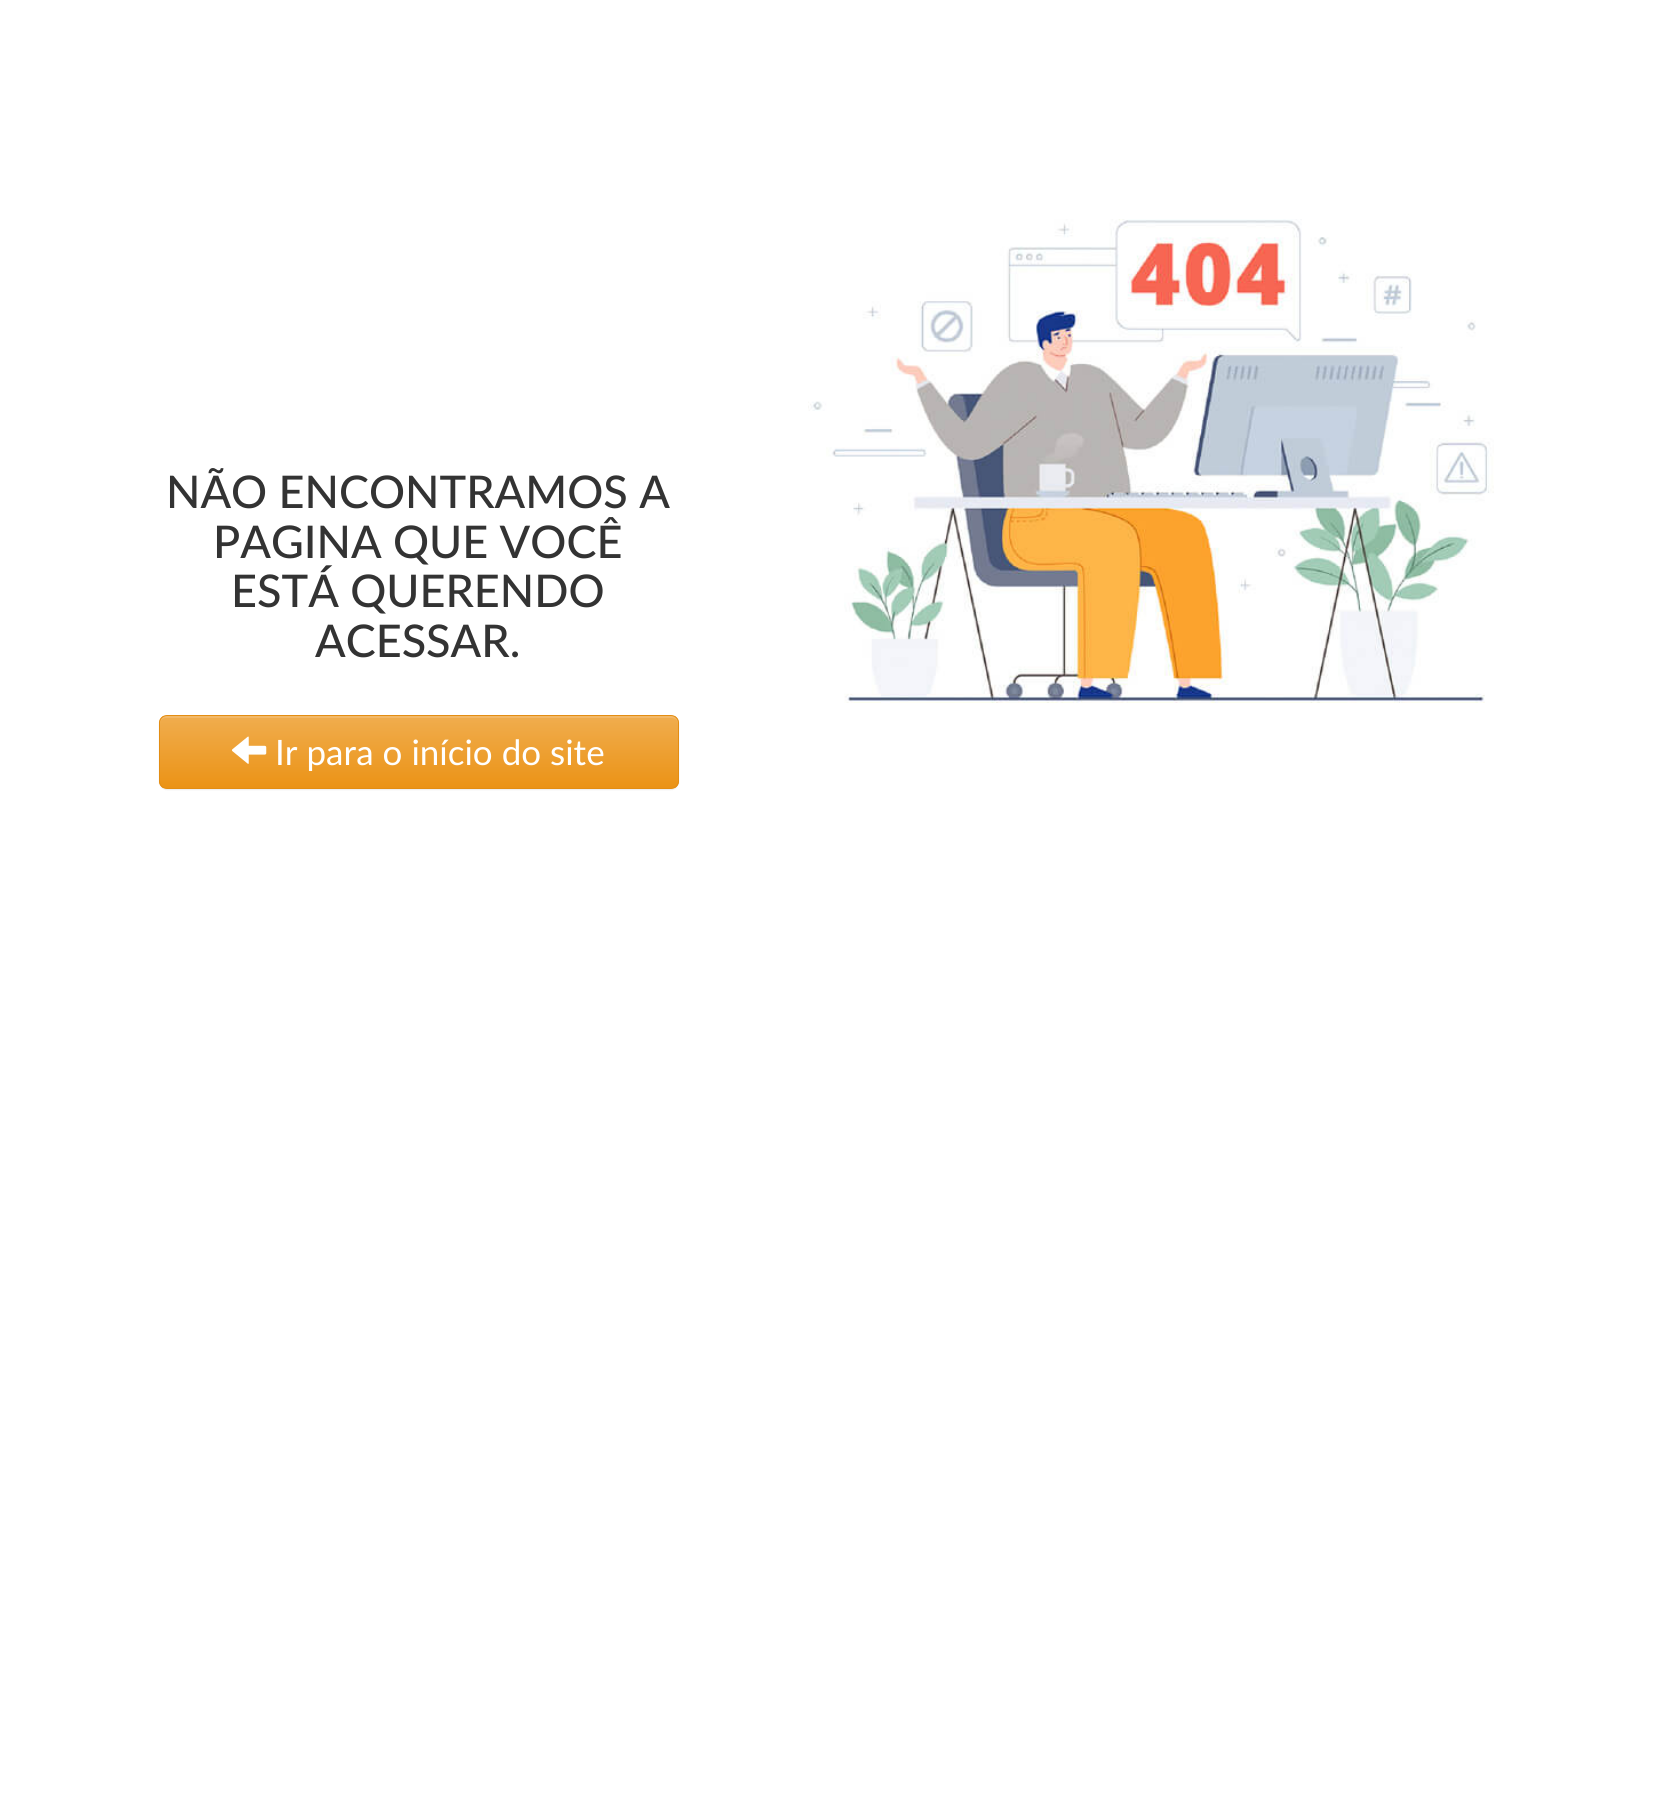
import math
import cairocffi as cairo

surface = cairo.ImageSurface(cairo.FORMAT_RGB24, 1672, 1818)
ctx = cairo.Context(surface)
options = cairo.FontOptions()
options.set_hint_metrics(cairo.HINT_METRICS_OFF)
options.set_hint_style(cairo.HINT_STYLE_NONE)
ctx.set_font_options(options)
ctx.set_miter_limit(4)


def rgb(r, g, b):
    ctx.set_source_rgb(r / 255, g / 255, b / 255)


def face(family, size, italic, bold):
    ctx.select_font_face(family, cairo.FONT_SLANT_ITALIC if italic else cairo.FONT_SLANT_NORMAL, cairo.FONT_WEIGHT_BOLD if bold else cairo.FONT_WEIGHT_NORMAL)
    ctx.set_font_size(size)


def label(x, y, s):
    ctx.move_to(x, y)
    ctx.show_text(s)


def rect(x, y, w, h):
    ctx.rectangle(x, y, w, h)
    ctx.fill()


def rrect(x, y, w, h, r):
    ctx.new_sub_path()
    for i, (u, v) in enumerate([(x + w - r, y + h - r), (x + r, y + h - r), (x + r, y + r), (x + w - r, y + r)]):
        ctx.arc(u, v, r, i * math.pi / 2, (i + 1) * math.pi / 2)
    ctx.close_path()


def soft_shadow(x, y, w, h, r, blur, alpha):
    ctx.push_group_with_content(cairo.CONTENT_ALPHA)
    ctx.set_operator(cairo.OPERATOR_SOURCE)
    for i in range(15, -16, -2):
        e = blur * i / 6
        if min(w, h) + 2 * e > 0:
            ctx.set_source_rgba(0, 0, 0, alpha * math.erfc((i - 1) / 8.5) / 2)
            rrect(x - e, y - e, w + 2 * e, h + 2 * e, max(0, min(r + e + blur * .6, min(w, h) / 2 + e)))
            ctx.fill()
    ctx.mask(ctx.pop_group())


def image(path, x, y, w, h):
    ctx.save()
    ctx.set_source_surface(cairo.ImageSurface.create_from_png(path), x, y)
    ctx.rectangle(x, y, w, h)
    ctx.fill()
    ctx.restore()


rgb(255, 255, 255)
ctx.paint()
face('Lato Medium', 45, 0, 0)
rgb(51, 51, 51)
label(166, 508, 'NÃO ENCONTRAMOS A')
label(213, 558, 'PAGINA QUE VOCÊ')
label(231, 607, 'ESTÁ QUERENDO')
label(315, 657, 'ACESSAR.')
rgb(0, 0, 0)
soft_shadow(159, 716, 520, 74, 8, 0.5, 0.07)
ctx.save()
rrect(159, 715, 520, 74, 8)
ctx.clip()
gradient = cairo.LinearGradient(419, 716, 419, 788)
gradient.add_color_stop_rgba(0, 0.941, 0.678, 0.306, 1)
gradient.add_color_stop_rgba(1, 0.922, 0.576, 0.086, 1)
ctx.set_source(gradient)
rect(159, 716, 520, 72)
ctx.restore()
ctx.set_source_rgba(1, 1, 1, 0.15)
ctx.new_path()
ctx.move_to(166, 718)
ctx.line_to(671, 718)
ctx.curve_to(675, 718, 678, 720, 678, 724)
ctx.line_to(678, 722)
ctx.curve_to(678, 719, 675, 716, 672, 716)
ctx.line_to(166, 716)
ctx.curve_to(163, 716, 160, 719, 160, 722)
ctx.line_to(160, 724)
ctx.curve_to(160, 720, 163, 718, 166, 718)
ctx.close_path()
ctx.fill()
rrect(159.5, 715.5, 519, 73, 7.5)
rgb(227, 141, 19)
ctx.set_line_width(1)
ctx.stroke()
image('image0.png', 231, 736, 36, 28)
face('Lato', 35, 0, 0)
rgb(255, 255, 255)
label(275, 765, 'Ir para o início do site')
image('image1.png', 808, 219, 686, 484)
surface.write_to_png('render.png')
